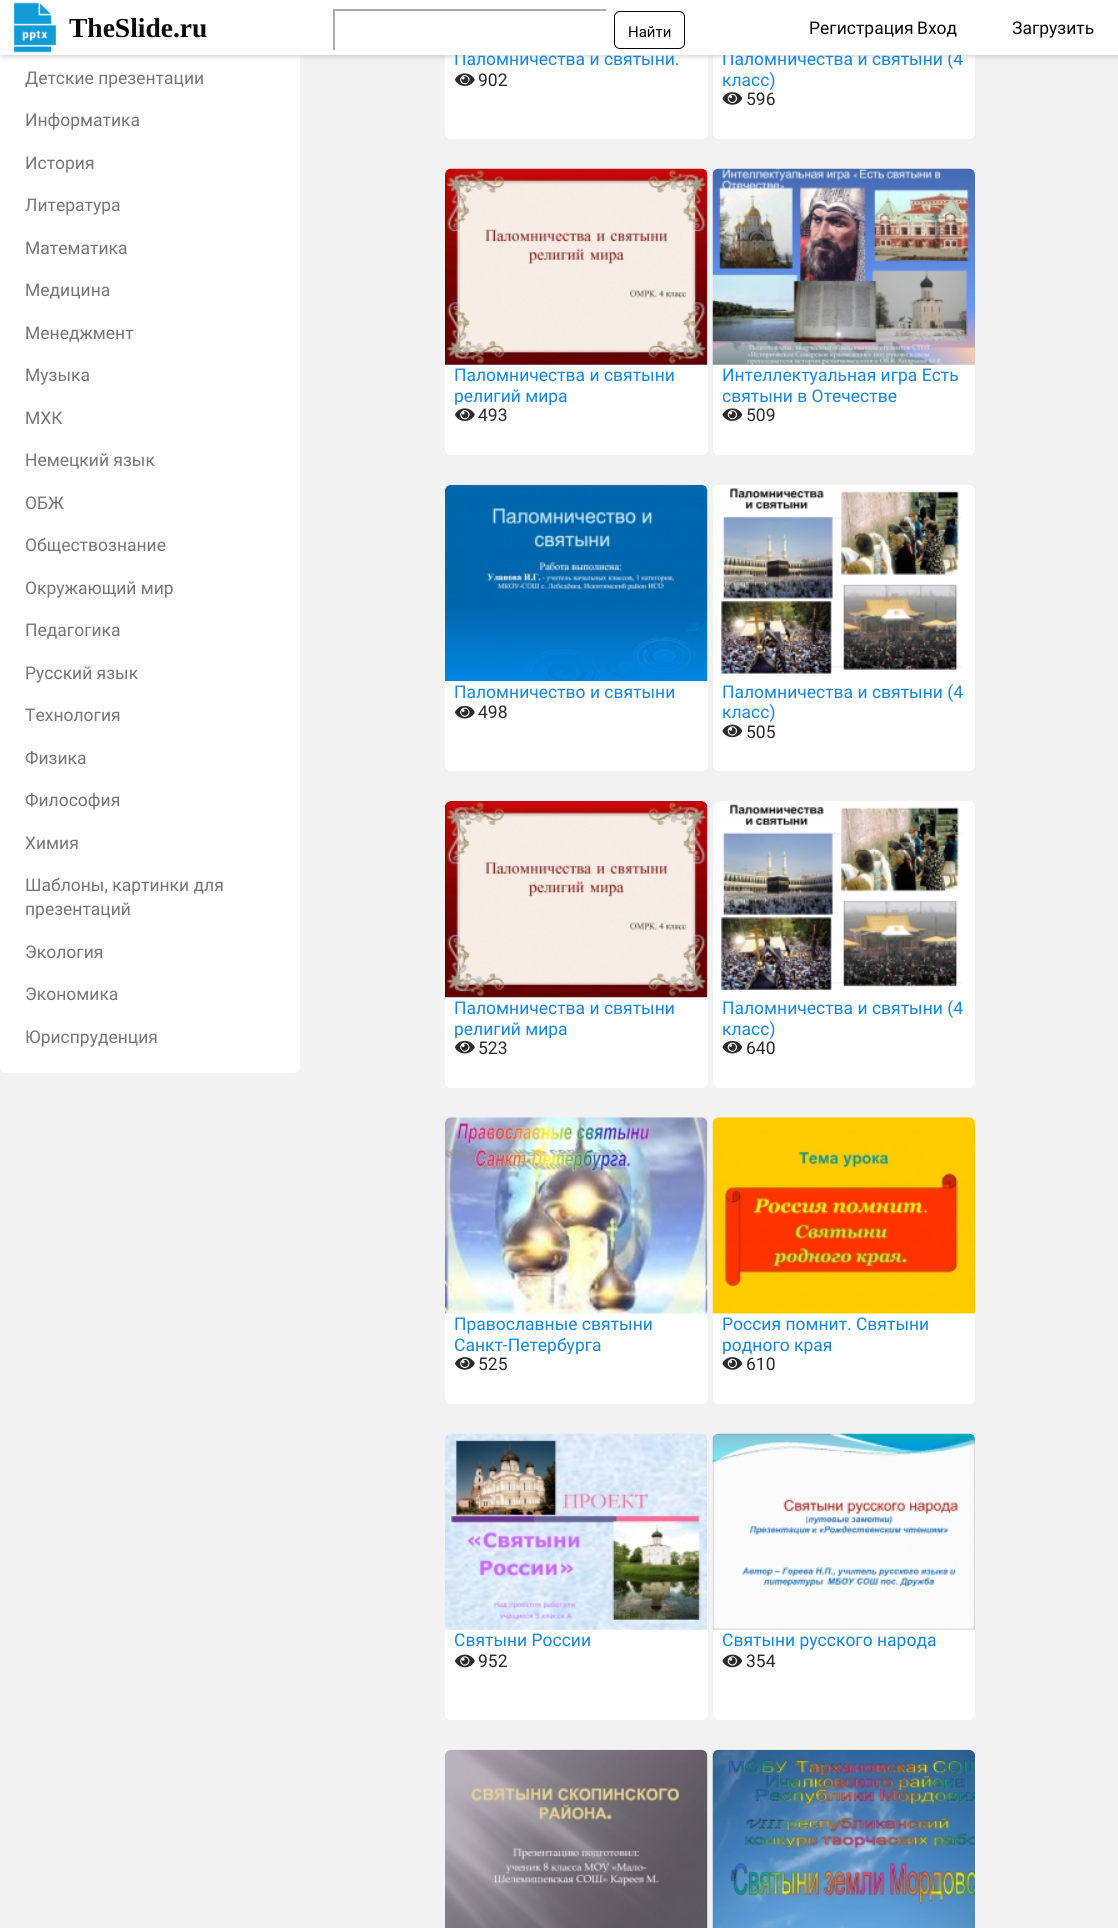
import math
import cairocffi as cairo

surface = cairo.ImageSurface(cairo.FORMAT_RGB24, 1118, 1928)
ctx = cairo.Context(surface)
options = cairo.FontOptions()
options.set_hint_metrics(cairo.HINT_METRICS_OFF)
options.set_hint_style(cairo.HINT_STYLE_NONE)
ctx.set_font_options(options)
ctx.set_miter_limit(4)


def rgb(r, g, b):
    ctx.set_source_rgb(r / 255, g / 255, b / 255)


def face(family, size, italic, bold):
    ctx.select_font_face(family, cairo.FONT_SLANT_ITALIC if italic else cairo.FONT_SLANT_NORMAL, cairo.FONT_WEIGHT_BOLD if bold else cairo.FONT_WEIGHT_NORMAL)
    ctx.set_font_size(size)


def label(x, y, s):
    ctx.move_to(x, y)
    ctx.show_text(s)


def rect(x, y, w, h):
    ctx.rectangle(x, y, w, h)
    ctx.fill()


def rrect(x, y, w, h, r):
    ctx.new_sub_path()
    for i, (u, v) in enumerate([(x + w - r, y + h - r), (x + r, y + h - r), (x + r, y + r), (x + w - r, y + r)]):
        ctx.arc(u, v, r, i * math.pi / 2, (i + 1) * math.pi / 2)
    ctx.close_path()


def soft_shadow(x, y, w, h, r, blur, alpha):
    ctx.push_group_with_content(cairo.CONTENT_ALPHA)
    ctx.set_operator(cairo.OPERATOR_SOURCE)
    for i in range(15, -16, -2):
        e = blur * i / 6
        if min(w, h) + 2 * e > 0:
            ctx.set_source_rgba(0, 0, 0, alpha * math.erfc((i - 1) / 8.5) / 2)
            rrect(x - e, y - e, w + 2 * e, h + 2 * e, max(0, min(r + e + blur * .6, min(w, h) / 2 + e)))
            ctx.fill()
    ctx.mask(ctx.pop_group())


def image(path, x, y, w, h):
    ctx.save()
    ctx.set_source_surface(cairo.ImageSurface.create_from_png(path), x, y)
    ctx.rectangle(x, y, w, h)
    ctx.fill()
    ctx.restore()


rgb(242, 242, 242)
ctx.paint()
rgb(255, 255, 255)
rrect(0, -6, 300, 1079, 6)
ctx.fill()
rrect(445, -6, 263, 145, 6)
ctx.fill()
rrect(713, -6, 262, 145, 6)
ctx.fill()
rgb(0, 0, 0)
soft_shadow(1, 1, 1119, 55, 0, 3, 0.2)
face('Roboto', 17.5, 0, 0)
rgb(22, 135, 222)
label(454, 65, 'Паломничества и святыни.')
label(722, 65, 'Паломничества и святыни (4')
rgb(255, 255, 255)
rect(0, 0, 1118, 55)
image('image0.png', 13, 2, 44, 51)
face('Liberation Serif', 27.5, 0, 1)
rgb(10, 10, 10)
label(69, 37, 'TheSlide.ru')
ctx.save()
ctx.rectangle(333, 9, 273, 41)
ctx.clip()
rgb(171, 171, 171)
ctx.set_fill_rule(cairo.FILL_RULE_EVEN_ODD)
ctx.new_path()
ctx.move_to(209, -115)
ctx.line_to(730, -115)
ctx.line_to(730, 174)
ctx.line_to(209, 174)
ctx.close_path()
ctx.move_to(335, 11)
ctx.line_to(606, 11)
ctx.line_to(606, 50)
ctx.line_to(335, 50)
ctx.close_path()
ctx.fill()
ctx.restore()
rrect(614.5, 11.5, 70, 37, 5.5)
ctx.set_line_width(1)
ctx.stroke()
face('Roboto', 15, 0, 0)
rgb(0, 0, 0)
label(628, 37, 'Найти')
face('Roboto', 17.5, 0, 0)
rgb(10, 10, 10)
label(809, 34, 'Регистрация')
label(917, 34, 'Вход')
label(1012, 34, 'Загрузить')
rgb(119, 119, 119)
label(25, 84, 'Детские презентации')
label(25, 126, 'Информатика')
label(25, 169, 'История')
label(25, 211, 'Литература')
label(25, 254, 'Математика')
label(25, 296, 'Медицина')
label(25, 339, 'Менеджмент')
label(25, 381, 'Музыка')
label(25, 424, 'МХК')
label(25, 466, 'Немецкий язык')
label(25, 509, 'ОБЖ')
label(25, 551, 'Обществознание')
label(25, 594, 'Окружающий мир')
label(25, 636, 'Педагогика')
label(25, 679, 'Русский язык')
label(25, 721, 'Технология')
label(25, 764, 'Физика')
label(25, 806, 'Философия')
label(25, 849, 'Химия')
label(25, 891, 'Шаблоны, картинки для')
label(25, 915, 'презентаций')
label(25, 958, 'Экология')
label(25, 1000, 'Экономика')
label(25, 1043, 'Юриспруденция')
image('image1.png', 455, 73, 20, 13)
rgb(42, 42, 42)
label(478, 86, '902')
rgb(22, 135, 222)
label(722, 86, 'класс)')
image('image2.png', 722, 92, 21, 13)
rgb(42, 42, 42)
label(746, 105, '596')
rgb(255, 255, 255)
rrect(445, 169, 263, 286, 6)
ctx.fill()
image('image3.png', 445, 168, 263, 197)
rgb(22, 135, 222)
label(454, 381, 'Паломничества и святыни')
ctx.save()
ctx.rectangle(455, 365, 243, 40)
ctx.clip()
label(454, 402, 'религий мира')
ctx.restore()
image('image1.png', 455, 408, 20, 13)
rgb(42, 42, 42)
label(478, 421, '493')
rgb(255, 255, 255)
rrect(713, 169, 262, 286, 6)
ctx.fill()
image('image4.png', 712, 168, 263, 197)
rgb(22, 135, 222)
label(722, 381, 'Интеллектуальная игра Есть')
ctx.save()
ctx.rectangle(723, 365, 242, 40)
ctx.clip()
label(722, 402, 'святыни в Отечестве')
ctx.restore()
image('image5.png', 722, 408, 21, 13)
rgb(42, 42, 42)
label(746, 421, '509')
rgb(255, 255, 255)
rrect(445, 485, 263, 286, 6)
ctx.fill()
image('image6.png', 445, 484, 263, 197)
rgb(22, 135, 222)
label(454, 698, 'Паломничество и святыни')
image('image7.png', 455, 705, 20, 14)
rgb(42, 42, 42)
label(478, 718, '498')
rgb(255, 255, 255)
rrect(713, 485, 262, 286, 6)
ctx.fill()
image('image8.png', 713, 485, 250, 191)
rgb(22, 135, 222)
label(722, 698, 'Паломничества и святыни (4')
label(722, 718, 'класс)')
image('image9.png', 722, 724, 21, 14)
rgb(42, 42, 42)
label(746, 738, '505')
rgb(255, 255, 255)
rrect(445, 801, 263, 287, 6)
ctx.fill()
image('image10.png', 445, 801, 263, 197)
rgb(22, 135, 222)
label(454, 1014, 'Паломничества и святыни')
ctx.save()
ctx.rectangle(455, 998, 243, 40)
ctx.clip()
label(454, 1035, 'религий мира')
ctx.restore()
image('image7.png', 455, 1040, 20, 14)
rgb(42, 42, 42)
label(478, 1054, '523')
rgb(255, 255, 255)
rrect(713, 801, 262, 287, 6)
ctx.fill()
image('image11.png', 713, 802, 249, 190)
rgb(22, 135, 222)
label(722, 1014, 'Паломничества и святыни (4')
label(722, 1035, 'класс)')
image('image12.png', 722, 1040, 21, 14)
rgb(42, 42, 42)
label(746, 1054, '640')
rgb(255, 255, 255)
rrect(445, 1118, 263, 286, 6)
ctx.fill()
image('image13.png', 445, 1117, 263, 197)
rgb(22, 135, 222)
label(454, 1330, 'Православные святыни')
ctx.save()
ctx.rectangle(455, 1314, 243, 40)
ctx.clip()
label(454, 1351, 'Санкт-Петербурга')
ctx.restore()
image('image14.png', 455, 1357, 20, 13)
rgb(42, 42, 42)
label(478, 1370, '525')
rgb(255, 255, 255)
rrect(713, 1118, 262, 286, 6)
ctx.fill()
image('image15.png', 712, 1117, 263, 197)
rgb(22, 135, 222)
label(722, 1330, 'Россия помнит. Святыни')
ctx.save()
ctx.rectangle(723, 1314, 242, 40)
ctx.clip()
label(722, 1351, 'родного края')
ctx.restore()
image('image2.png', 722, 1357, 21, 13)
rgb(42, 42, 42)
label(746, 1370, '610')
rgb(255, 255, 255)
rrect(445, 1434, 263, 286, 6)
ctx.fill()
image('image16.png', 445, 1433, 263, 197)
rgb(22, 135, 222)
label(454, 1646, 'Святыни России')
image('image17.png', 455, 1654, 20, 14)
rgb(42, 42, 42)
label(478, 1667, '952')
rgb(255, 255, 255)
rrect(713, 1434, 262, 286, 6)
ctx.fill()
image('image18.png', 712, 1433, 263, 197)
rgb(22, 135, 222)
label(722, 1646, 'Святыни русского народа')
image('image9.png', 722, 1654, 21, 14)
rgb(42, 42, 42)
label(746, 1667, '354')
rgb(255, 255, 255)
rrect(445, 1750, 263, 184, 6)
ctx.fill()
image('image19.png', 445, 1749, 263, 179)
image('image20.png', 712, 1749, 263, 179)
surface.write_to_png('render.png')
